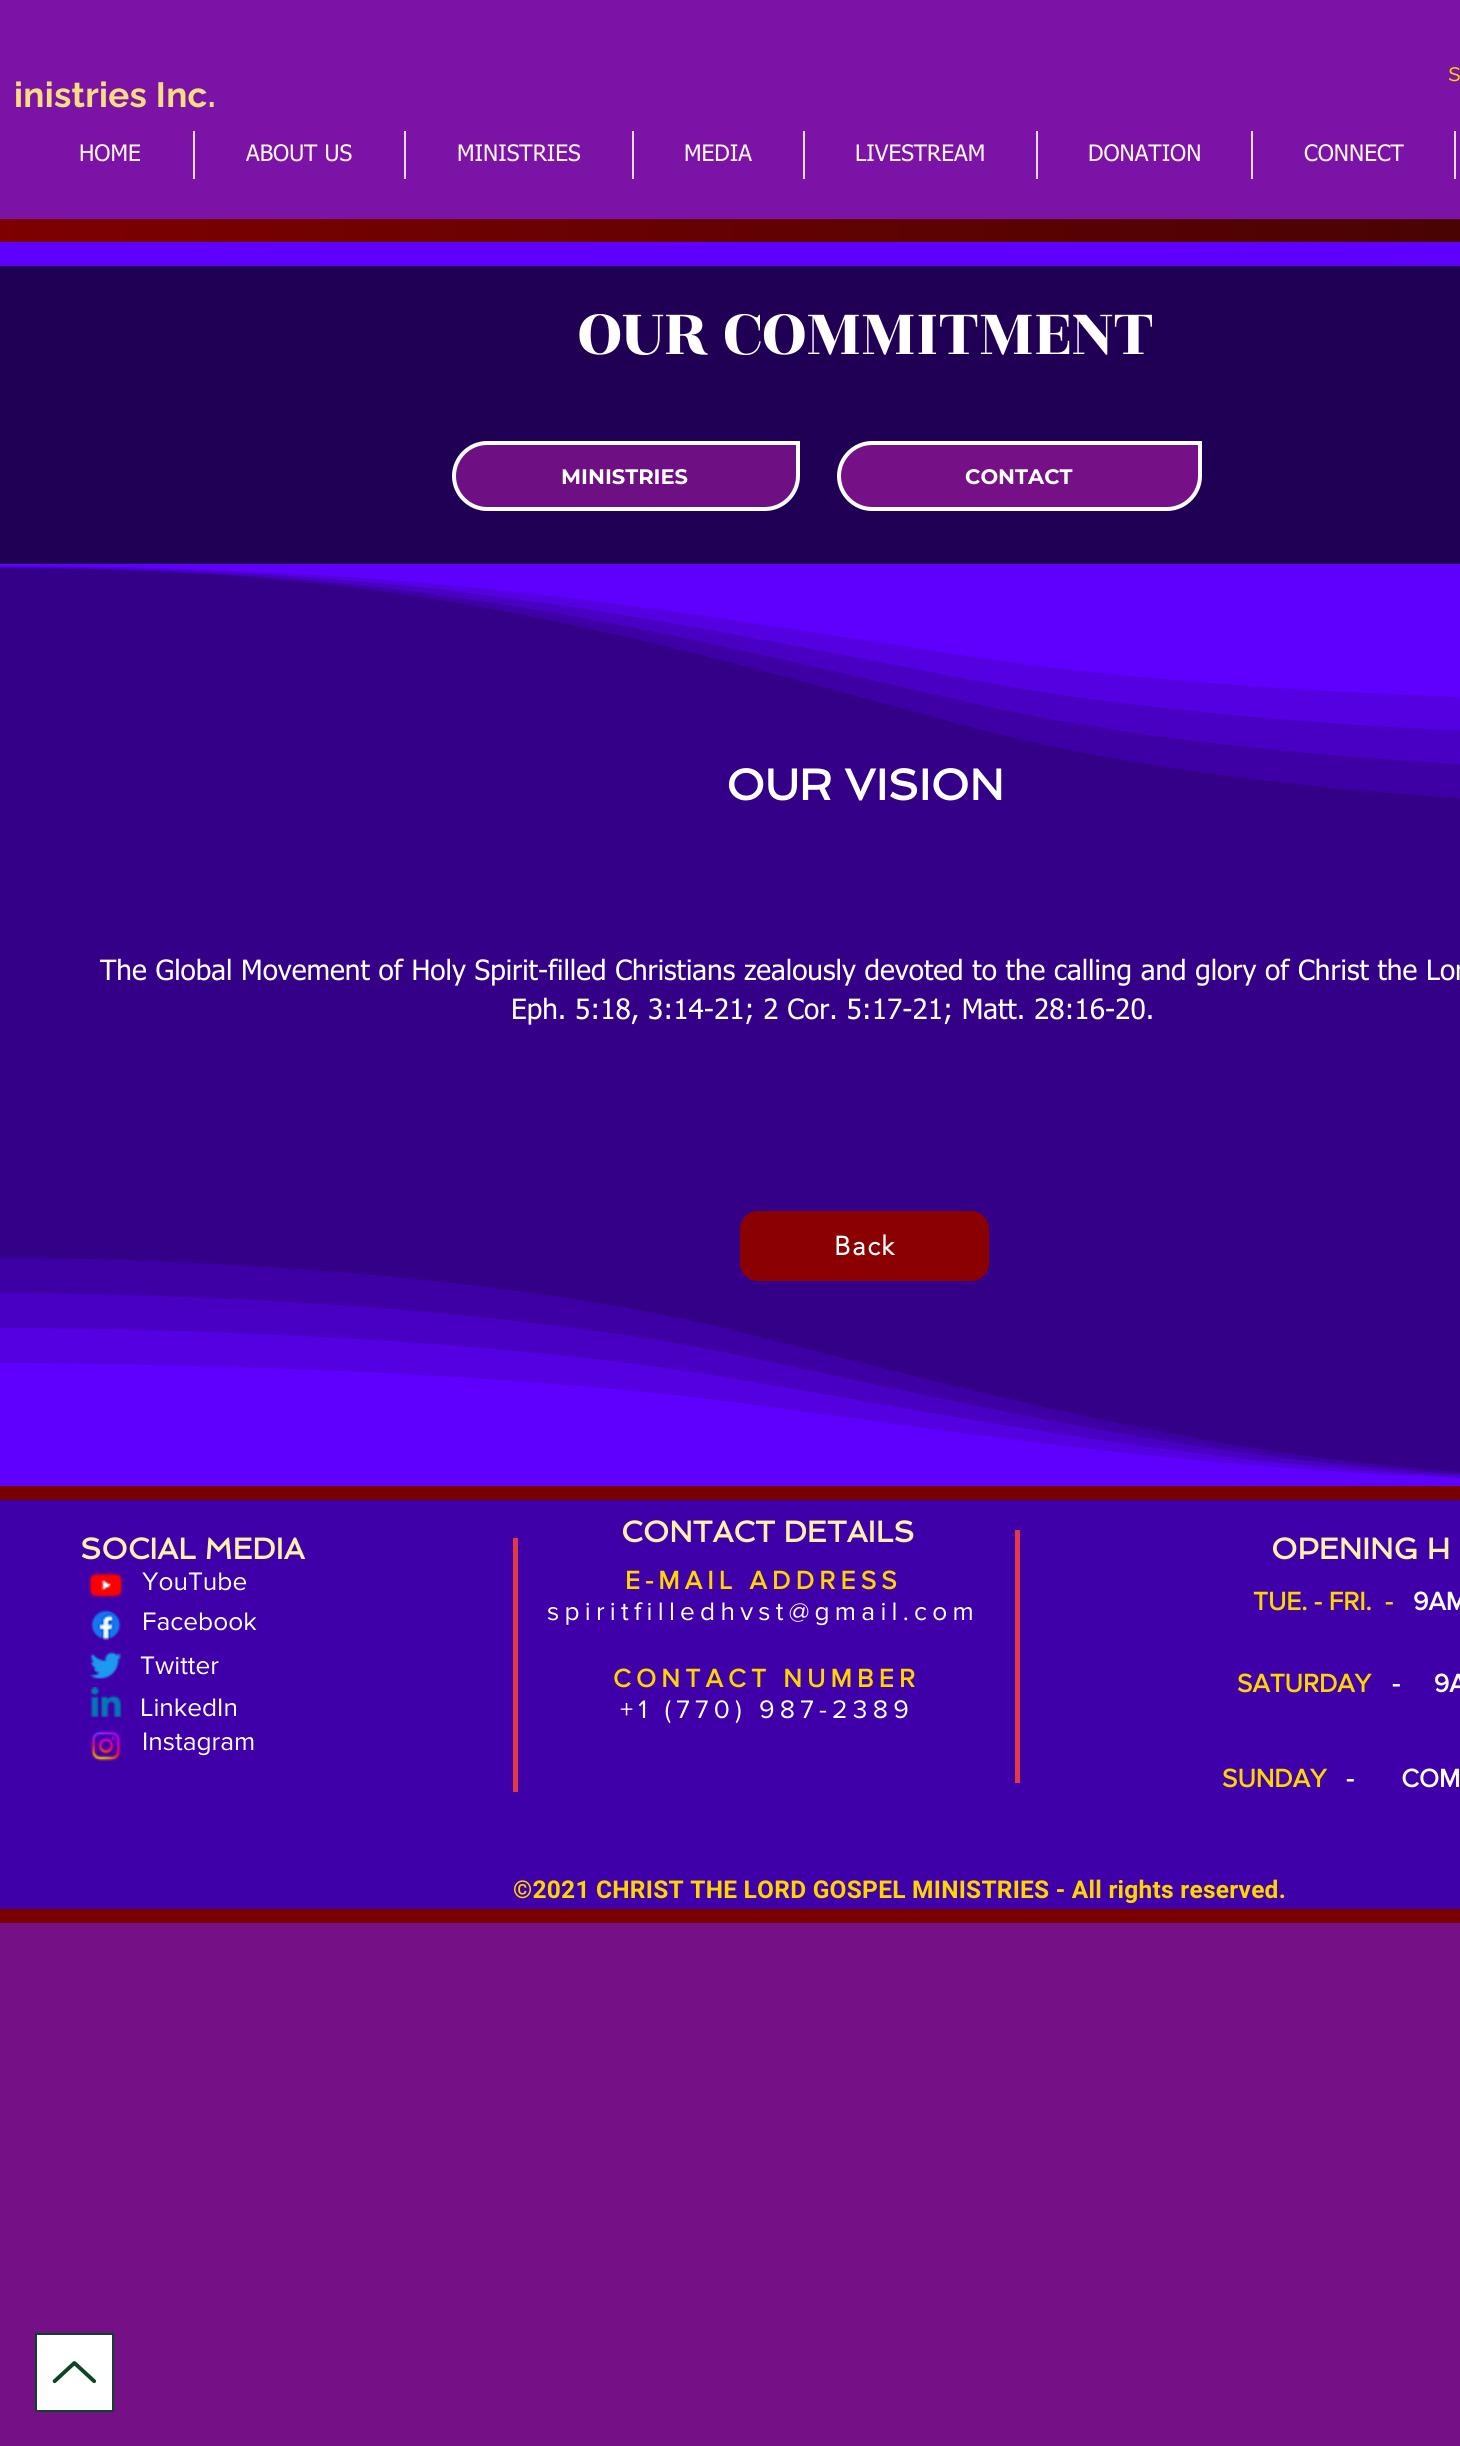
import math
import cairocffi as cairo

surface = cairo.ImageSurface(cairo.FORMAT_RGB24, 1460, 2446)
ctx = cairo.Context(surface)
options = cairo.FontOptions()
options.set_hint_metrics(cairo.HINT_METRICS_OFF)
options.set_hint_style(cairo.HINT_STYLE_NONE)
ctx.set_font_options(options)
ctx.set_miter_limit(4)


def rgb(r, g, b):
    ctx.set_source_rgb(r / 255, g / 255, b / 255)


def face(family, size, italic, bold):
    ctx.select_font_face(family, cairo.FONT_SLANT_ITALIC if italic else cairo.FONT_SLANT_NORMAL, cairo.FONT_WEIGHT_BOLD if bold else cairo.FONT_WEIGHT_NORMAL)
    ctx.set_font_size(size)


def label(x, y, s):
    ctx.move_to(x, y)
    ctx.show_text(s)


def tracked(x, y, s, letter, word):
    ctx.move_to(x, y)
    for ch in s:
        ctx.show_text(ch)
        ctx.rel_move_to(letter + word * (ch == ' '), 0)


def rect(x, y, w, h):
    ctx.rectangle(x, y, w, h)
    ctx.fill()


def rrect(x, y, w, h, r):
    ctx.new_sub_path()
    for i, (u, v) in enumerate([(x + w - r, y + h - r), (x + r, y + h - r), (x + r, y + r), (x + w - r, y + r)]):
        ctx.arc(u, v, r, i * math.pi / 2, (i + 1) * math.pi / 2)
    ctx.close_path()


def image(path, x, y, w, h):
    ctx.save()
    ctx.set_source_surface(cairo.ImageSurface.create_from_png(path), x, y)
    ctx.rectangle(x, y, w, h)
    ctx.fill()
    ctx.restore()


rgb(117, 16, 135)
ctx.paint()
rgb(95, 0, 255)
rect(0, 242, 1460, 24)
rgb(123, 19, 167)
rect(0, 0, 1460, 219)
face('Raleway', 26.25, 0, 0)
rgb(255, 213, 0)
tracked(1448, 81, 's', 5.25, 0)
face('Raleway', 35, 0, 1)
rgb(249, 222, 129)
tracked(14, 107, 'inistries Inc.', 0.3, 0)
face('tahoma', 22.75, 0, 0)
rgb(255, 245, 240)
label(79, 161, 'HOME')
rgb(234, 217, 241)
rect(193, 131, 2, 48)
rgb(255, 245, 240)
label(246, 161, 'ABOUT US')
rgb(234, 217, 241)
rect(404, 131, 2, 48)
rgb(255, 245, 240)
label(457, 161, 'MINISTRIES')
rgb(234, 217, 241)
rect(632, 131, 2, 48)
rgb(255, 245, 240)
label(684, 161, 'MEDIA')
rgb(234, 217, 241)
rect(803, 131, 2, 48)
rgb(255, 245, 240)
label(855, 161, 'LIVESTREAM')
rgb(234, 217, 241)
rect(1036, 131, 2, 48)
rgb(255, 245, 240)
label(1088, 161, 'DONATION')
rgb(234, 217, 241)
rect(1251, 131, 2, 48)
rgb(255, 245, 240)
label(1304, 161, 'CONNECT')
rgb(234, 217, 241)
rect(1454, 131, 2, 48)
gradient = cairo.LinearGradient(0, 230, 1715, 230)
gradient.add_color_stop_rgba(0, 0.494, 0, 0.004, 1)
gradient.add_color_stop_rgba(1, 0.251, 0.012, 0.012, 1)
ctx.set_source(gradient)
rect(0, 219, 1460, 23)
rgb(32, 0, 85)
rect(0, 266, 1460, 298)
face('Rozha One', 70, 0, 0)
rgb(255, 255, 255)
label(578, 354, 'OUR COMMITMENT')
rgb(111, 15, 132)
ctx.new_path()
ctx.move_to(487, 443)
ctx.line_to(798, 443)
ctx.line_to(798, 476)
ctx.curve_to(798, 494, 783, 509, 765, 509)
ctx.line_to(487, 509)
ctx.curve_to(469, 509, 454, 494, 454, 476)
ctx.curve_to(454, 458, 469, 443, 487, 443)
ctx.close_path()
ctx.fill_preserve()
rgb(255, 255, 255)
ctx.set_line_width(4)
ctx.stroke()
face('Montserrat', 21, 0, 1)
label(561, 484, 'MINISTRIES')
rgb(117, 16, 135)
ctx.new_path()
ctx.move_to(872, 443)
ctx.line_to(1200, 443)
ctx.line_to(1200, 476)
ctx.curve_to(1200, 494, 1185, 509, 1167, 509)
ctx.line_to(872, 509)
ctx.curve_to(854, 509, 839, 494, 839, 476)
ctx.curve_to(839, 458, 854, 443, 872, 443)
ctx.close_path()
ctx.fill_preserve()
rgb(255, 255, 255)
ctx.stroke()
label(965, 484, 'CONTACT')
rgb(51, 0, 135)
rect(0, 568, 1460, 904)
rgb(62, 0, 165)
ctx.new_path()
ctx.move_to(0, 564)
ctx.line_to(0, 568)
ctx.curve_to(407, 568, 617, 631, 967, 726)
ctx.curve_to(1277, 810, 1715, 807, 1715, 807)
ctx.line_to(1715, 564)
ctx.close_path()
ctx.fill()
ctx.set_source_rgba(0.373, 0, 1, 0.33)
ctx.new_path()
ctx.move_to(0, 564)
ctx.line_to(0, 568)
ctx.curve_to(407, 568, 617, 621, 967, 702)
ctx.curve_to(1277, 774, 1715, 772, 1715, 772)
ctx.line_to(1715, 564)
ctx.close_path()
ctx.fill()
rgb(84, 0, 225)
ctx.new_path()
ctx.move_to(0, 564)
ctx.line_to(0, 567)
ctx.curve_to(407, 567, 617, 611, 967, 679)
ctx.curve_to(1277, 739, 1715, 737, 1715, 737)
ctx.line_to(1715, 564)
ctx.close_path()
ctx.fill()
rgb(95, 0, 255)
ctx.new_path()
ctx.move_to(0, 564)
ctx.line_to(0, 566)
ctx.curve_to(407, 566, 617, 602, 967, 656)
ctx.curve_to(1277, 704, 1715, 702, 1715, 702)
ctx.line_to(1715, 564)
ctx.close_path()
ctx.fill()
face('Spinnaker', 43.75, 0, 1)
rgb(255, 255, 255)
label(726, 800, 'OUR VISION')
face('tahoma', 28, 0, 0)
label(100, 980, 'The Global Movement of Holy Spirit-filled Christians zealously devoted to the calling and glory of Christ the Lor')
label(511, 1019, 'Eph. 5:18, 3:14-21; 2 Cor. 5:17-21; Matt. 28:16-20.')
rgb(62, 0, 165)
ctx.new_path()
ctx.move_to(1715, 1486)
ctx.line_to(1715, 1481)
ctx.curve_to(1308, 1481, 1098, 1423, 748, 1334)
ctx.curve_to(438, 1255, 0, 1258, 0, 1258)
ctx.line_to(0, 1486)
ctx.close_path()
ctx.fill()
rgb(139, 0, 0)
rrect(740, 1211, 249, 70, 18)
ctx.fill()
face('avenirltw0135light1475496', 26.25, 0, 1)
rgb(255, 255, 255)
tracked(834, 1255, 'Back', 1.5, 0)
rgb(73, 0, 195)
ctx.new_path()
ctx.move_to(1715, 1486)
ctx.line_to(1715, 1482)
ctx.curve_to(1308, 1482, 1098, 1433, 748, 1357)
ctx.curve_to(438, 1291, 0, 1293, 0, 1293)
ctx.line_to(0, 1486)
ctx.close_path()
ctx.fill()
rgb(84, 0, 225)
ctx.new_path()
ctx.move_to(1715, 1486)
ctx.line_to(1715, 1483)
ctx.curve_to(1308, 1483, 1098, 1442, 748, 1381)
ctx.curve_to(438, 1326, 0, 1328, 0, 1328)
ctx.line_to(0, 1486)
ctx.close_path()
ctx.fill()
rgb(95, 0, 255)
ctx.new_path()
ctx.move_to(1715, 1486)
ctx.line_to(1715, 1483)
ctx.curve_to(1308, 1483, 1098, 1452, 748, 1404)
ctx.curve_to(438, 1362, 0, 1363, 0, 1363)
ctx.line_to(0, 1486)
ctx.close_path()
ctx.fill()
rgb(63, 0, 170)
rect(0, 1500, 1460, 409)
rgb(120, 0, 1)
rect(0, 1486, 1460, 14)
rect(0, 1909, 1460, 14)
face('Spinnaker', 29.75, 0, 1)
rgb(255, 241, 170)
label(80, 1559, 'SOCIAL MEDIA')
rgb(225, 58, 68)
rect(513, 1538, 5, 254)
rgb(255, 241, 170)
label(621, 1542, 'CONTACT DETAILS')
rgb(225, 58, 68)
rect(1015, 1530, 5, 253)
rgb(255, 241, 170)
label(1271, 1559, 'OPENING H')
image('image0.png', 88, 1572, 35, 26)
image('image1.png', 90, 1609, 31, 32)
image('image2.png', 89, 1651, 34, 29)
image('image3.png', 90, 1687, 32, 31)
image('image4.png', 90, 1730, 32, 31)
face('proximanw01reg', 26.25, 0, 0)
rgb(255, 255, 255)
label(142, 1590, 'YouTube')
label(142, 1630, 'Facebook')
label(140, 1674, 'Twitter')
label(140, 1716, 'LinkedIn')
label(142, 1750, 'Instagram')
face('proximanw01reg', 26.25, 0, 1)
rgb(255, 213, 0)
tracked(625, 1589, 'E-MAIL ADDRESS', 5.25, 0)
face('proximanw01reg', 26.25, 0, 0)
rgb(255, 255, 255)
tracked(547, 1620, 'spiritfilledhvst@gmail.com', 5.25, 0)
face('proximanw01reg', 26.25, 0, 1)
rgb(255, 213, 0)
label(1253, 1610, 'TUE. - FRI.  -')
rgb(255, 255, 255)
label(1413, 1610, '9AM')
rgb(255, 213, 0)
tracked(613, 1687, 'CONTACT NUMBER', 5.25, 0)
face('proximanw01reg', 26.25, 0, 0)
rgb(255, 255, 255)
tracked(620, 1718, '+1 (770) 987-2389', 5.25, 0)
face('proximanw01reg', 26.25, 0, 1)
rgb(255, 213, 0)
label(1237, 1692, 'SATURDAY')
rgb(255, 255, 255)
label(1392, 1692, '-     9A')
rgb(255, 213, 0)
label(1222, 1787, 'SUNDAY')
rgb(255, 255, 255)
label(1346, 1787, '-       COM')
face('Roboto', 24.5, 0, 1)
rgb(255, 213, 0)
tracked(513, 1898, '©2021 CHRIST THE LORD GOSPEL MINISTRIES - All rights reserved.', 0.25, 0)
rgb(255, 255, 255)
ctx.rectangle(36, 2334, 77, 77)
ctx.fill_preserve()
rgb(12, 68, 38)
ctx.set_line_width(2)
ctx.stroke()
image('image5.png', 52, 2361, 45, 23)
surface.write_to_png('render.png')
